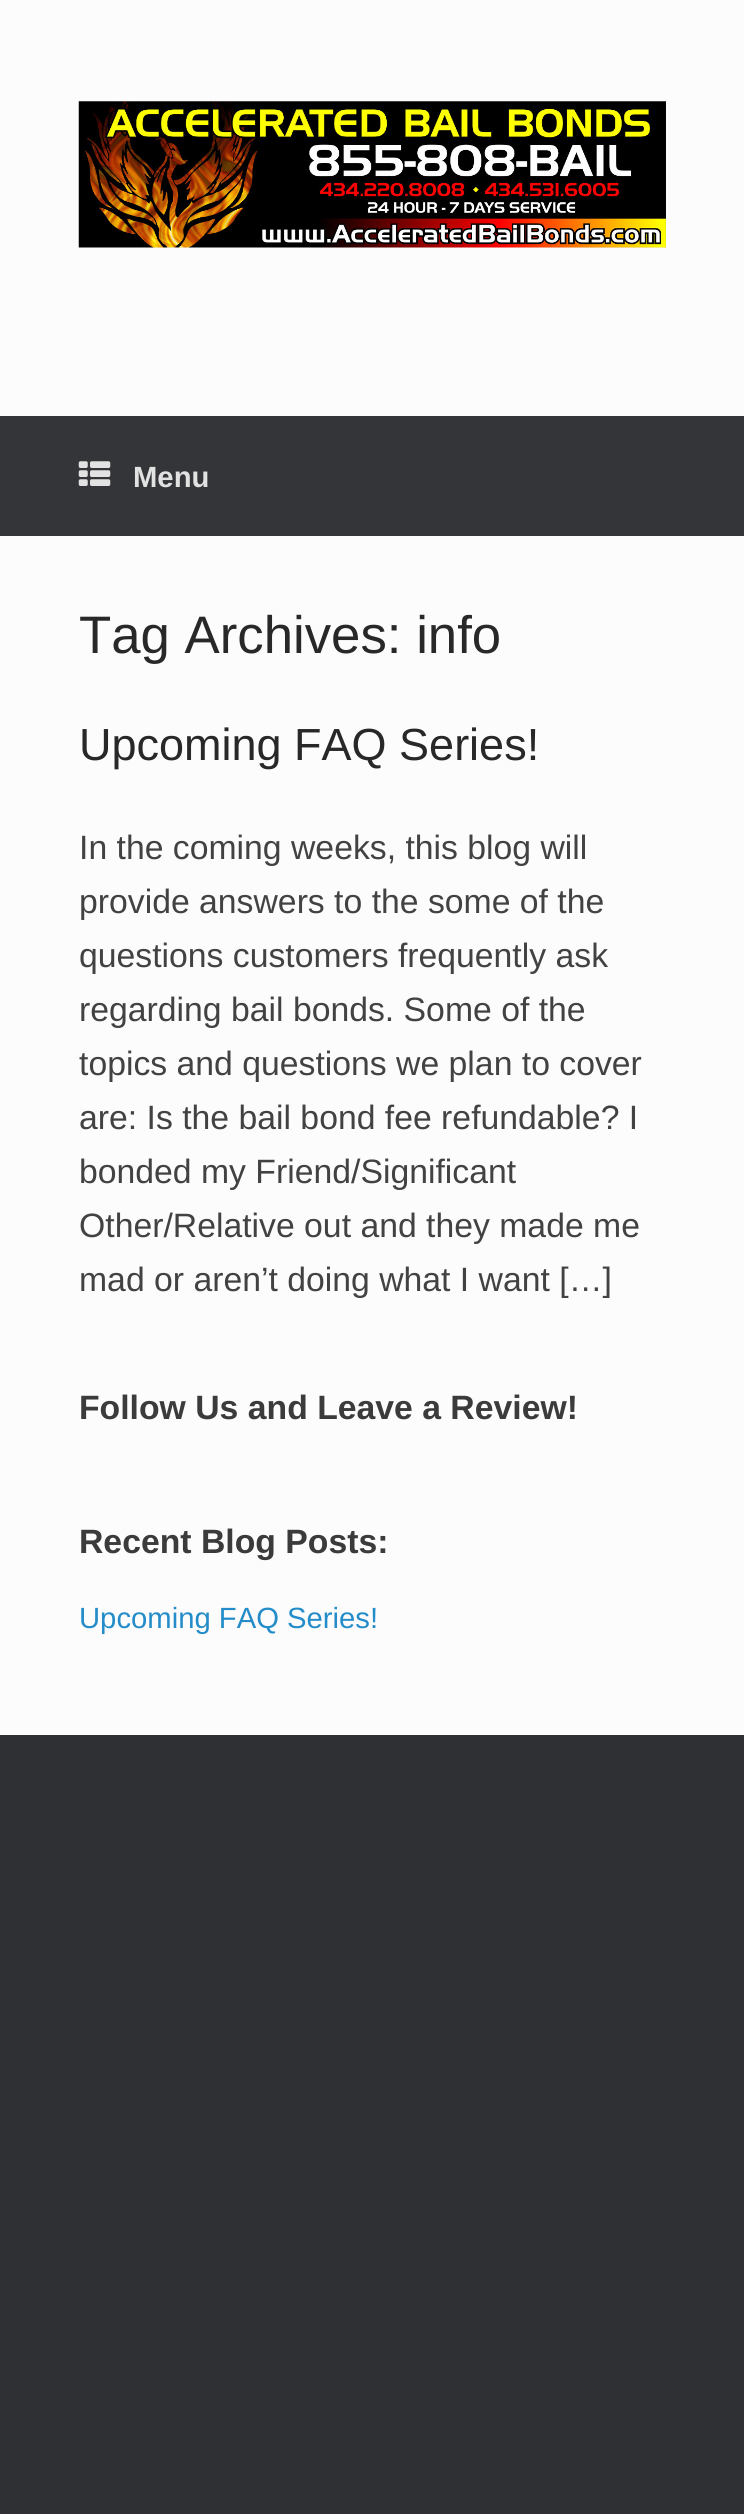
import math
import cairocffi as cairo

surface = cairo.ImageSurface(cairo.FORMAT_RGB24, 744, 2514)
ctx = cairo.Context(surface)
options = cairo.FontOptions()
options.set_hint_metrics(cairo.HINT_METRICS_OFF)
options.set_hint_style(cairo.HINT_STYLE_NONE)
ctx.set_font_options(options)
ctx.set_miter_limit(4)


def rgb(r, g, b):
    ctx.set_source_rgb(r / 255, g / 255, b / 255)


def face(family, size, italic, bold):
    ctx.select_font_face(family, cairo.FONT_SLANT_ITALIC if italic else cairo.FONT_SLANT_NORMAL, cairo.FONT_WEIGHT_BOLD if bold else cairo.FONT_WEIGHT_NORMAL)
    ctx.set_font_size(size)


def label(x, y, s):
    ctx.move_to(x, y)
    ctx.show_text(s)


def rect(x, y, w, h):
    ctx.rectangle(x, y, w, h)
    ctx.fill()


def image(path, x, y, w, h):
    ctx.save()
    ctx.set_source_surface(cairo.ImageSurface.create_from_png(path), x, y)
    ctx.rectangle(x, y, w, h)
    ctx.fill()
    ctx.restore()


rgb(47, 48, 51)
ctx.paint()
rgb(252, 252, 252)
rect(0, 0, 744, 416)
image('image0.png', 78, 101, 588, 147)
rgb(52, 53, 56)
rect(0, 416, 744, 120)
image('image1.png', 78, 461, 33, 25)
face('Liberation Sans', 29.25, 0, 1)
rgb(226, 226, 226)
label(133, 487, 'Menu')
rgb(252, 252, 252)
rect(0, 536, 744, 1199)
face('Liberation Sans', 52.75, 0, 0)
rgb(40, 40, 40)
label(79, 653, 'Tag Archives: info')
face('Liberation Sans', 45, 0, 0)
label(79, 760, 'Upcoming FAQ Series!')
face('Liberation Sans', 33.75, 0, 0)
rgb(66, 66, 66)
label(79, 859, 'In the coming weeks, this blog will')
label(79, 913, 'provide answers to the some of the')
label(79, 967, 'questions customers frequently ask')
label(79, 1021, 'regarding bail bonds. Some of the')
label(79, 1075, 'topics and questions we plan to cover')
label(79, 1129, 'are: Is the bail bond fee refundable? I')
label(79, 1183, 'bonded my Friend/Significant')
label(79, 1237, 'Other/Relative out and they made me')
label(79, 1291, 'mad or aren’t doing what I want […]')
face('Liberation Sans', 33.75, 0, 1)
rgb(59, 59, 59)
label(79, 1419, 'Follow Us and Leave a Review!')
label(79, 1553, 'Recent Blog Posts:')
face('Liberation Sans', 29.25, 0, 0)
rgb(36, 140, 200)
label(79, 1628, 'Upcoming FAQ Series!')
surface.write_to_png('render.png')
